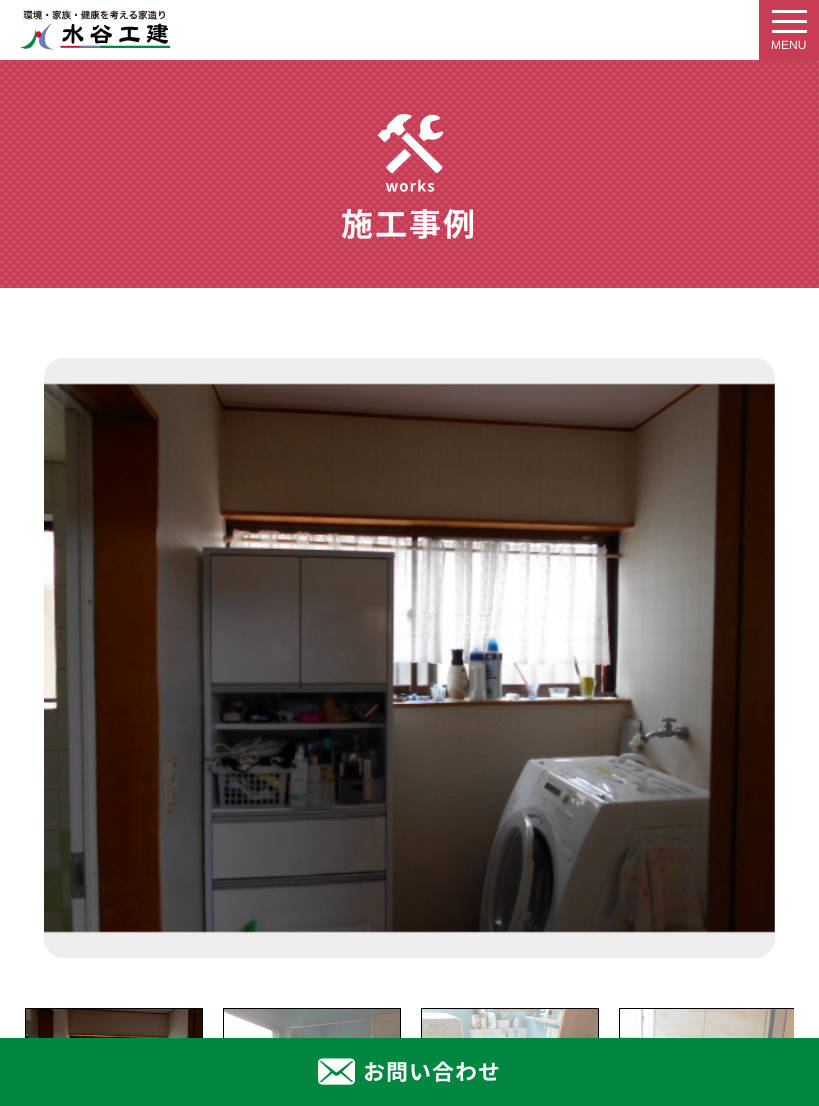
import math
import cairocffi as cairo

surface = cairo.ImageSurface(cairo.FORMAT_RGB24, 819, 1106)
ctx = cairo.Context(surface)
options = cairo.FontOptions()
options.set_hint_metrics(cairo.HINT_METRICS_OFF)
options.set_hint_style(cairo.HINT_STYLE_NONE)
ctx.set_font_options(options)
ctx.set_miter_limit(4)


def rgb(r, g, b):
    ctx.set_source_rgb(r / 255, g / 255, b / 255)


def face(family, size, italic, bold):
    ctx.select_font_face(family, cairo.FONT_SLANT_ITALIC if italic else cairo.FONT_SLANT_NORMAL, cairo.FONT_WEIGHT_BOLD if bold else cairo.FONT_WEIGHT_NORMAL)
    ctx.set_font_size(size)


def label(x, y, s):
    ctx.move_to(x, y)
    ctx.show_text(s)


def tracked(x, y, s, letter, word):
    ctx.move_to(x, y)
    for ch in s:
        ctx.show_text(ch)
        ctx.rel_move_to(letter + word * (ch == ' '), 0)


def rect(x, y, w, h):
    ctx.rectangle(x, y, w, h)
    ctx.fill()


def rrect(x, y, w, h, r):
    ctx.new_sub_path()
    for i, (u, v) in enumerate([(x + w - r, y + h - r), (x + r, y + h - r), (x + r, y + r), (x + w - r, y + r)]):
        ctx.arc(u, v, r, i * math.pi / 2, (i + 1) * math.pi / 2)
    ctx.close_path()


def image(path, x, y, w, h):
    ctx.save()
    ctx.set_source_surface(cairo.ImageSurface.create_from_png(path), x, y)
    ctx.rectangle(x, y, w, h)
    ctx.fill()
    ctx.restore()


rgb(255, 255, 255)
ctx.paint()
image('image0.png', 20, 10, 150, 40)
rgb(200, 60, 85)
rect(759, 0, 60, 60)
rgb(255, 255, 255)
rect(772, 20, 35, 3)
rect(772, 10, 35, 3)
rect(772, 30, 35, 3)
face('Liberation Sans', 12, 0, 0)
label(771, 49, 'MENU')
image('image1.png', 0, 60, 819, 228)
image('image2.png', 377, 114, 67, 78)
face('Noto Sans CJK JP', 32, 0, 1)
tracked(341, 236, '施工事例', 2, 0)
rgb(238, 238, 238)
rrect(44, 358, 731, 600, 20)
ctx.fill()
image('image3.png', 44, 383, 731, 550)
ctx.rectangle(25.5, 1008.5, 177, 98)
rgb(0, 0, 0)
ctx.set_line_width(1)
ctx.stroke()
image('image4.png', 26, 1009, 176, 29)
ctx.rectangle(223.5, 1008.5, 177, 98)
ctx.stroke()
image('image5.png', 224, 1009, 176, 29)
ctx.rectangle(421.5, 1008.5, 177, 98)
ctx.stroke()
image('image6.png', 422, 1009, 176, 29)
ctx.save()
ctx.rectangle(5, 1008, 789, 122)
ctx.clip()
ctx.rectangle(619.5, 1008.5, 177, 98)
ctx.stroke()
ctx.restore()
image('image7.png', 620, 1009, 174, 29)
rgb(0, 135, 63)
rect(0, 1038, 819, 68)
image('image8.png', 318, 1058, 37, 27)
face('Noto Sans CJK JP', 22, 0, 1)
rgb(255, 255, 255)
tracked(363, 1080, 'お問い合わせ', 1, 0)
surface.write_to_png('render.png')
